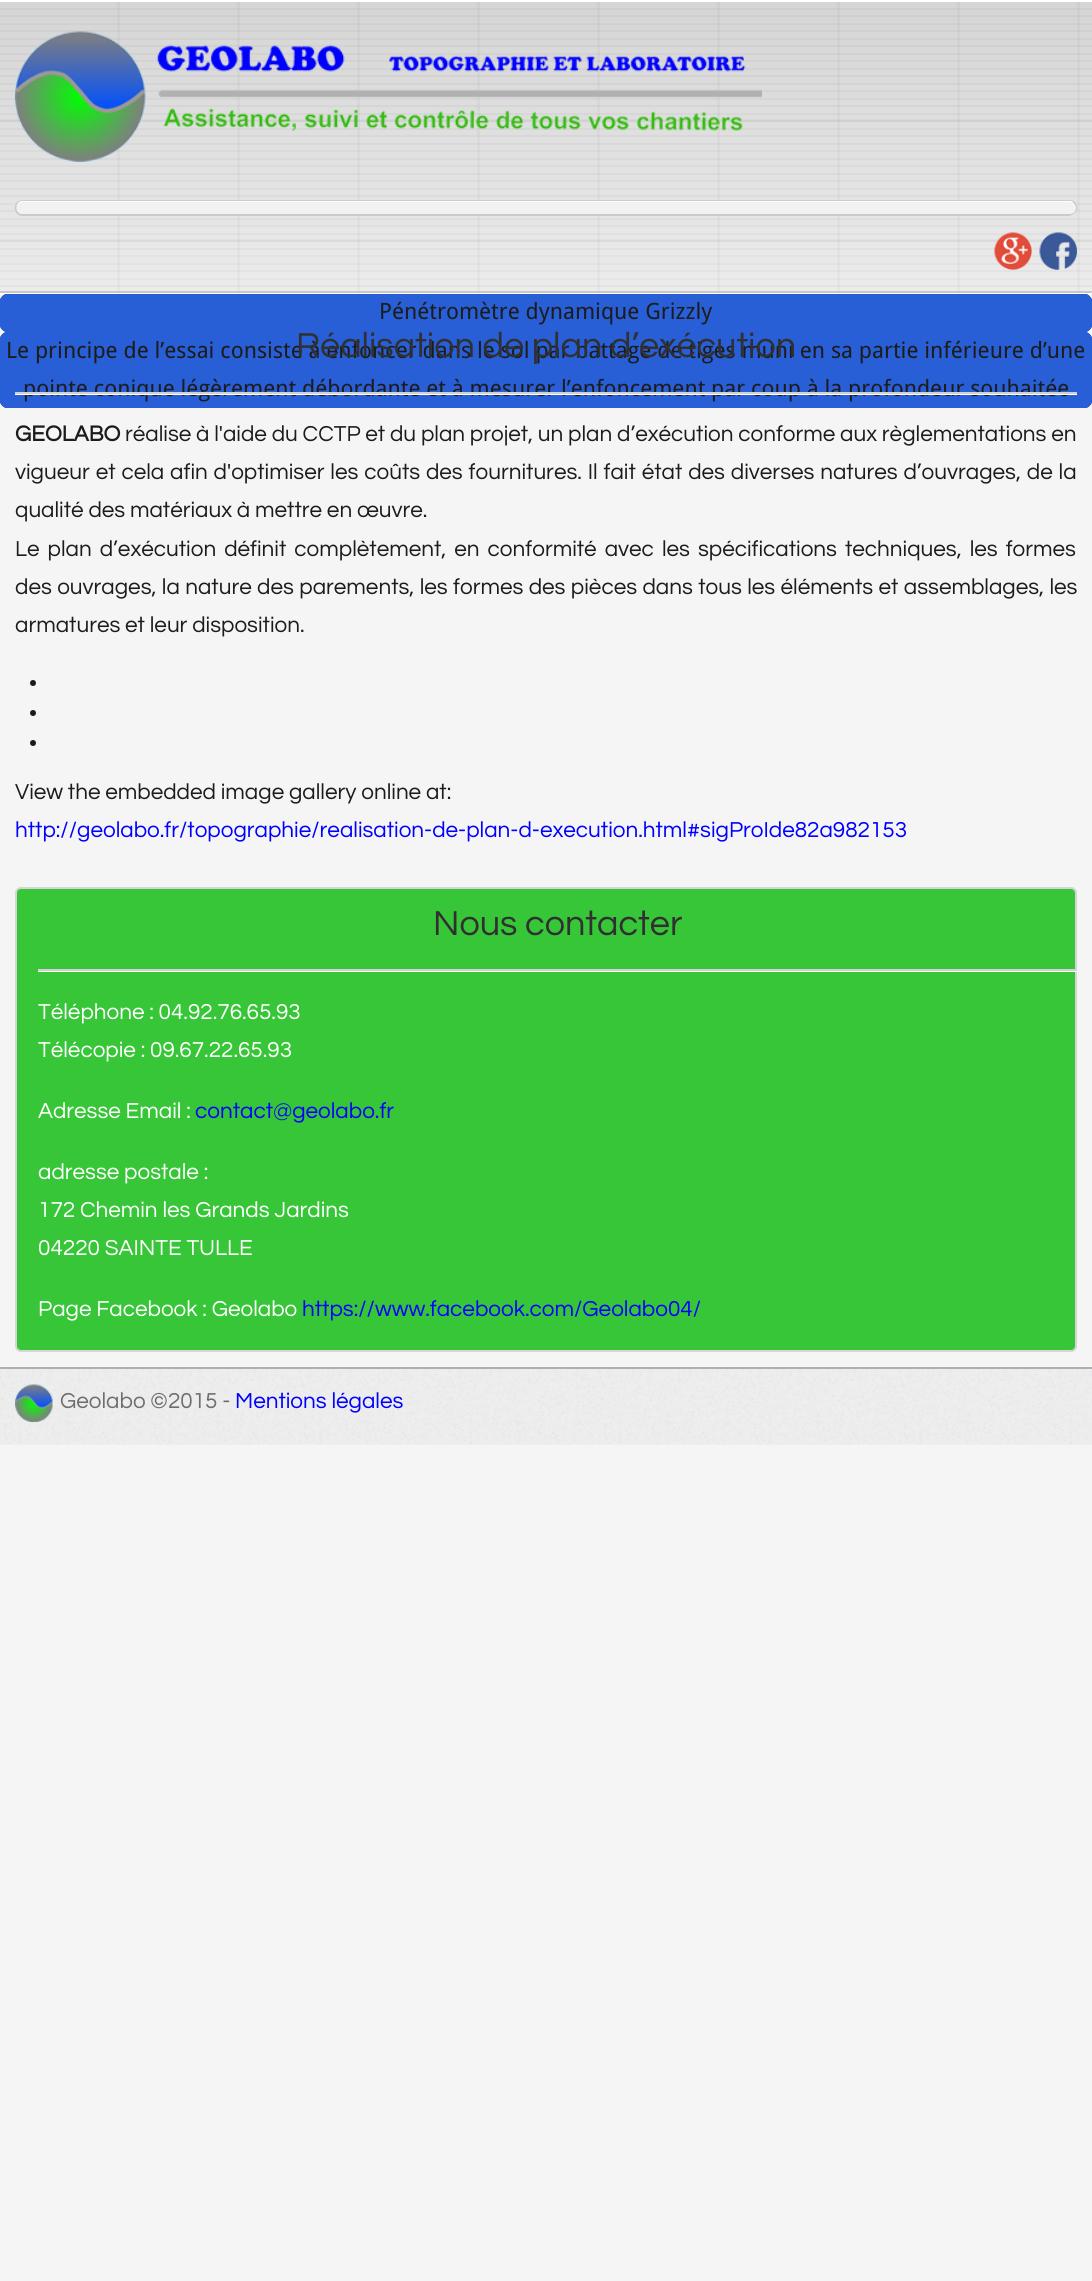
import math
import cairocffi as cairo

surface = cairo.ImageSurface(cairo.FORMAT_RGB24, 1092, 2281)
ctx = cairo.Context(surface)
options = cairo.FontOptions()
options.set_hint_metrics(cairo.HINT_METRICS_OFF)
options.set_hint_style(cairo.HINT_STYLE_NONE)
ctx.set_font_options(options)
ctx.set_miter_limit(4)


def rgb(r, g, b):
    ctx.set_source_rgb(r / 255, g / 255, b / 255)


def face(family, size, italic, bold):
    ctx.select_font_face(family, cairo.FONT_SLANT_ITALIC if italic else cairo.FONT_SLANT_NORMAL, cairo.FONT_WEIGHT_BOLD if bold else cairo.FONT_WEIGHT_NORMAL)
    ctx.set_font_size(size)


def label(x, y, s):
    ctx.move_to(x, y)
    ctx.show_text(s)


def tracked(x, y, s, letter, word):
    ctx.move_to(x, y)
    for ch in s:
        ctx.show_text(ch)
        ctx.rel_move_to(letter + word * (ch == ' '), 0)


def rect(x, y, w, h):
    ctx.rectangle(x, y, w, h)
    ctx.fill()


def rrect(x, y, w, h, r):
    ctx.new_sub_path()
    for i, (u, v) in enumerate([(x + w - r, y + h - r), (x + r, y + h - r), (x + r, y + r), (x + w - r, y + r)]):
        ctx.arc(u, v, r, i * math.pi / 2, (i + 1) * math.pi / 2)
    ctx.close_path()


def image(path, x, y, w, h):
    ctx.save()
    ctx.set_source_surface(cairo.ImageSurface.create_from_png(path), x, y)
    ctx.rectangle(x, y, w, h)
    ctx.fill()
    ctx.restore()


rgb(245, 245, 245)
ctx.paint()
rgb(255, 255, 255)
rect(0, 0, 1092, 2)
gradient = cairo.LinearGradient(546, 1.5, 546, 293)
gradient.add_color_stop_rgba(0, 0.835, 0.835, 0.835, 1)
gradient.add_color_stop_rgba(1, 0.925, 0.925, 0.925, 1)
ctx.set_source(gradient)
rect(0, 2, 1092, 289)
rgb(200, 200, 200)
rect(0, 291, 1092, 2)
rgb(255, 255, 255)
rect(0, 293, 1092, 2)
image('image0.png', 0, 8, 1092, 279)
ctx.set_source_rgba(0, 0, 0, 0.03)
rect(117, 2, 3, 291)
rect(237, 2, 3, 291)
rect(357, 2, 3, 291)
rect(477, 2, 3, 291)
rect(597, 2, 3, 291)
rect(717, 2, 3, 291)
rect(837, 2, 3, 291)
rect(957, 2, 3, 291)
rect(1077, 2, 3, 291)
rect(0, 119, 1092, 3)
rect(0, 239, 1092, 3)
image('image1.png', 15, 31, 747, 131)
rgb(242, 242, 242)
rrect(15, 200, 1062, 16, 8)
ctx.fill()
rgb(255, 255, 255)
ctx.new_path()
ctx.move_to(22, 202)
ctx.line_to(1070, 202)
ctx.curve_to(1073, 203, 1074, 206, 1075, 209)
ctx.curve_to(1076, 205, 1074, 200, 1070, 200)
ctx.line_to(22, 200)
ctx.curve_to(18, 200, 16, 205, 16, 208)
ctx.curve_to(17, 205, 19, 202, 22, 202)
ctx.close_path()
ctx.fill()
rgb(203, 203, 203)
ctx.new_path()
ctx.move_to(22, 201)
ctx.line_to(1070, 201)
ctx.curve_to(1073, 201, 1074, 204, 1075, 207)
ctx.curve_to(1075, 203, 1073, 200, 1070, 200)
ctx.line_to(22, 200)
ctx.curve_to(19, 200, 16, 203, 16, 207)
ctx.curve_to(17, 204, 19, 201, 22, 201)
ctx.close_path()
ctx.fill()
ctx.set_fill_rule(cairo.FILL_RULE_EVEN_ODD)
ctx.new_path()
ctx.move_to(22, 200)
ctx.line_to(1070, 200)
ctx.curve_to(1078, 200, 1080, 212, 1072, 215)
ctx.line_to(1070, 216)
ctx.line_to(21, 216)
ctx.curve_to(12, 214, 13, 200, 22, 200)
ctx.close_path()
ctx.move_to(22, 200)
ctx.line_to(1070, 200)
ctx.curve_to(1073, 200, 1075, 204, 1076, 207)
ctx.curve_to(1076, 211, 1074, 214, 1070, 214)
ctx.line_to(22, 214)
ctx.curve_to(14, 214, 15, 200, 22, 200)
ctx.close_path()
ctx.fill()
image('image2.png', 994, 232, 38, 38)
image('image3.png', 1039, 232, 38, 38)
ctx.set_source_rgba(0.157, 0.373, 0.839, 0.9)
rrect(0, 294, 1092, 38, 8)
ctx.fill()
rgb(60, 110, 217)
rrect(0, 332, 1092, 76, 8)
ctx.fill()
ctx.set_source_rgba(0.157, 0.373, 0.839, 0.9)
rrect(0, 294, 1092, 38, 8)
ctx.fill()
rrect(0, 332, 1092, 76, 8)
ctx.fill()
rrect(0, 294, 1092, 38, 8)
ctx.fill()
rrect(0, 332, 1092, 76, 8)
ctx.fill()
rrect(0, 294, 1092, 38, 8)
ctx.fill()
rrect(0, 332, 1092, 76, 8)
ctx.fill()
rrect(0, 294, 1092, 38, 8)
ctx.fill()
rrect(0, 332, 1092, 76, 8)
ctx.fill()
rrect(0, 294, 1092, 38, 8)
ctx.fill()
face('Droid Sans', 22.5, 0, 0)
rgb(28, 28, 28)
label(379, 319, 'Pénétromètre dynamique Grizzly')
ctx.set_source_rgba(0.157, 0.373, 0.839, 0.9)
rrect(0, 332, 1092, 76, 8)
ctx.fill()
rgb(28, 28, 28)
label(6, 358, 'Le principe de l’essai consiste à enfoncer dans le sol par battage de tiges muni en sa partie inférieure d’une')
label(23, 396, 'pointe conique légèrement débordante et à mesurer l’enfoncement par coup à la profondeur souhaitée')
rgb(255, 255, 255)
rect(15, 394, 1062, 1)
rgb(209, 209, 209)
rect(15, 392, 1062, 2)
face('Questrial', 36, 0, 0)
rgb(48, 48, 48)
label(296, 357, 'Réalisation de plan d’exécution')
face('Questrial', 22.5, 0, 1)
rgb(28, 28, 28)
label(15, 441, 'GEOLABO')
face('Questrial', 22.5, 0, 0)
label(125, 441, 'réalise à l\'aide du CCTP et du plan projet, un plan d’exécution conforme aux règlementations en')
tracked(15, 479, 'vigueur et cela afin d\'optimiser les coûts des fournitures. Il fait état des diverses natures d’ouvrages, de la', 0, 1.1)
label(15, 517, 'qualité des matériaux à mettre en œuvre.')
tracked(15, 556, 'Le plan d’exécution définit complètement, en conformité avec les spécifications techniques, les formes', 0, 3.25)
tracked(15, 594, 'des ouvrages, la nature des parements, les formes des pièces dans tous les éléments et assemblages, les', 0, 0.6)
label(15, 632, 'armatures et leur disposition.')
ctx.new_path()
ctx.arc(33, 683, 3, 0, 2 * math.pi)
ctx.fill()
ctx.arc(33, 713, 3, 0, 2 * math.pi)
ctx.fill()
ctx.arc(33, 743, 3, 0, 2 * math.pi)
ctx.fill()
label(15, 799, 'View the embedded image gallery online at:')
rgb(0, 0, 254)
label(15, 837, 'http://geolabo.fr/topographie/realisation-de-plan-d-execution.html#sigProIde82a982153')
rgb(55, 198, 55)
rrect(16, 888, 1060, 463, 5)
ctx.fill_preserve()
rgb(213, 213, 213)
ctx.stroke()
rgb(255, 255, 255)
rect(38, 971, 1039, 1)
rgb(209, 209, 209)
rect(38, 969, 1039, 2)
face('Questrial', 36, 0, 0)
rgb(48, 48, 48)
label(433, 935, 'Nous contacter')
face('Questrial', 22.5, 0, 0)
rgb(255, 255, 255)
label(38, 1019, 'Téléphone : 04.92.76.65.93')
label(38, 1057, 'Télécopie : 09.67.22.65.93')
label(38, 1118, 'Adresse Email :')
rgb(0, 0, 254)
label(195, 1118, 'contact@geolabo.fr')
rgb(255, 255, 255)
label(38, 1179, 'adresse postale :')
label(38, 1217, '172 Chemin les Grands Jardins')
label(38, 1255, '04220 SAINTE TULLE')
label(38, 1316, 'Page Facebook : Geolabo')
rgb(0, 0, 254)
label(302, 1316, 'https://www.facebook.com/Geolabo04/')
rgb(238, 238, 238)
rect(0, 1369, 1092, 76)
image('image4.png', 0, 1369, 1092, 75)
rgb(175, 175, 175)
rect(0, 1367, 1092, 2)
image('image5.png', 15, 1384, 38, 38)
rgb(110, 110, 110)
label(60, 1408, 'Geolabo ©2015 -')
rgb(0, 0, 254)
label(235, 1408, 'Mentions légales')
surface.write_to_png('render.png')
